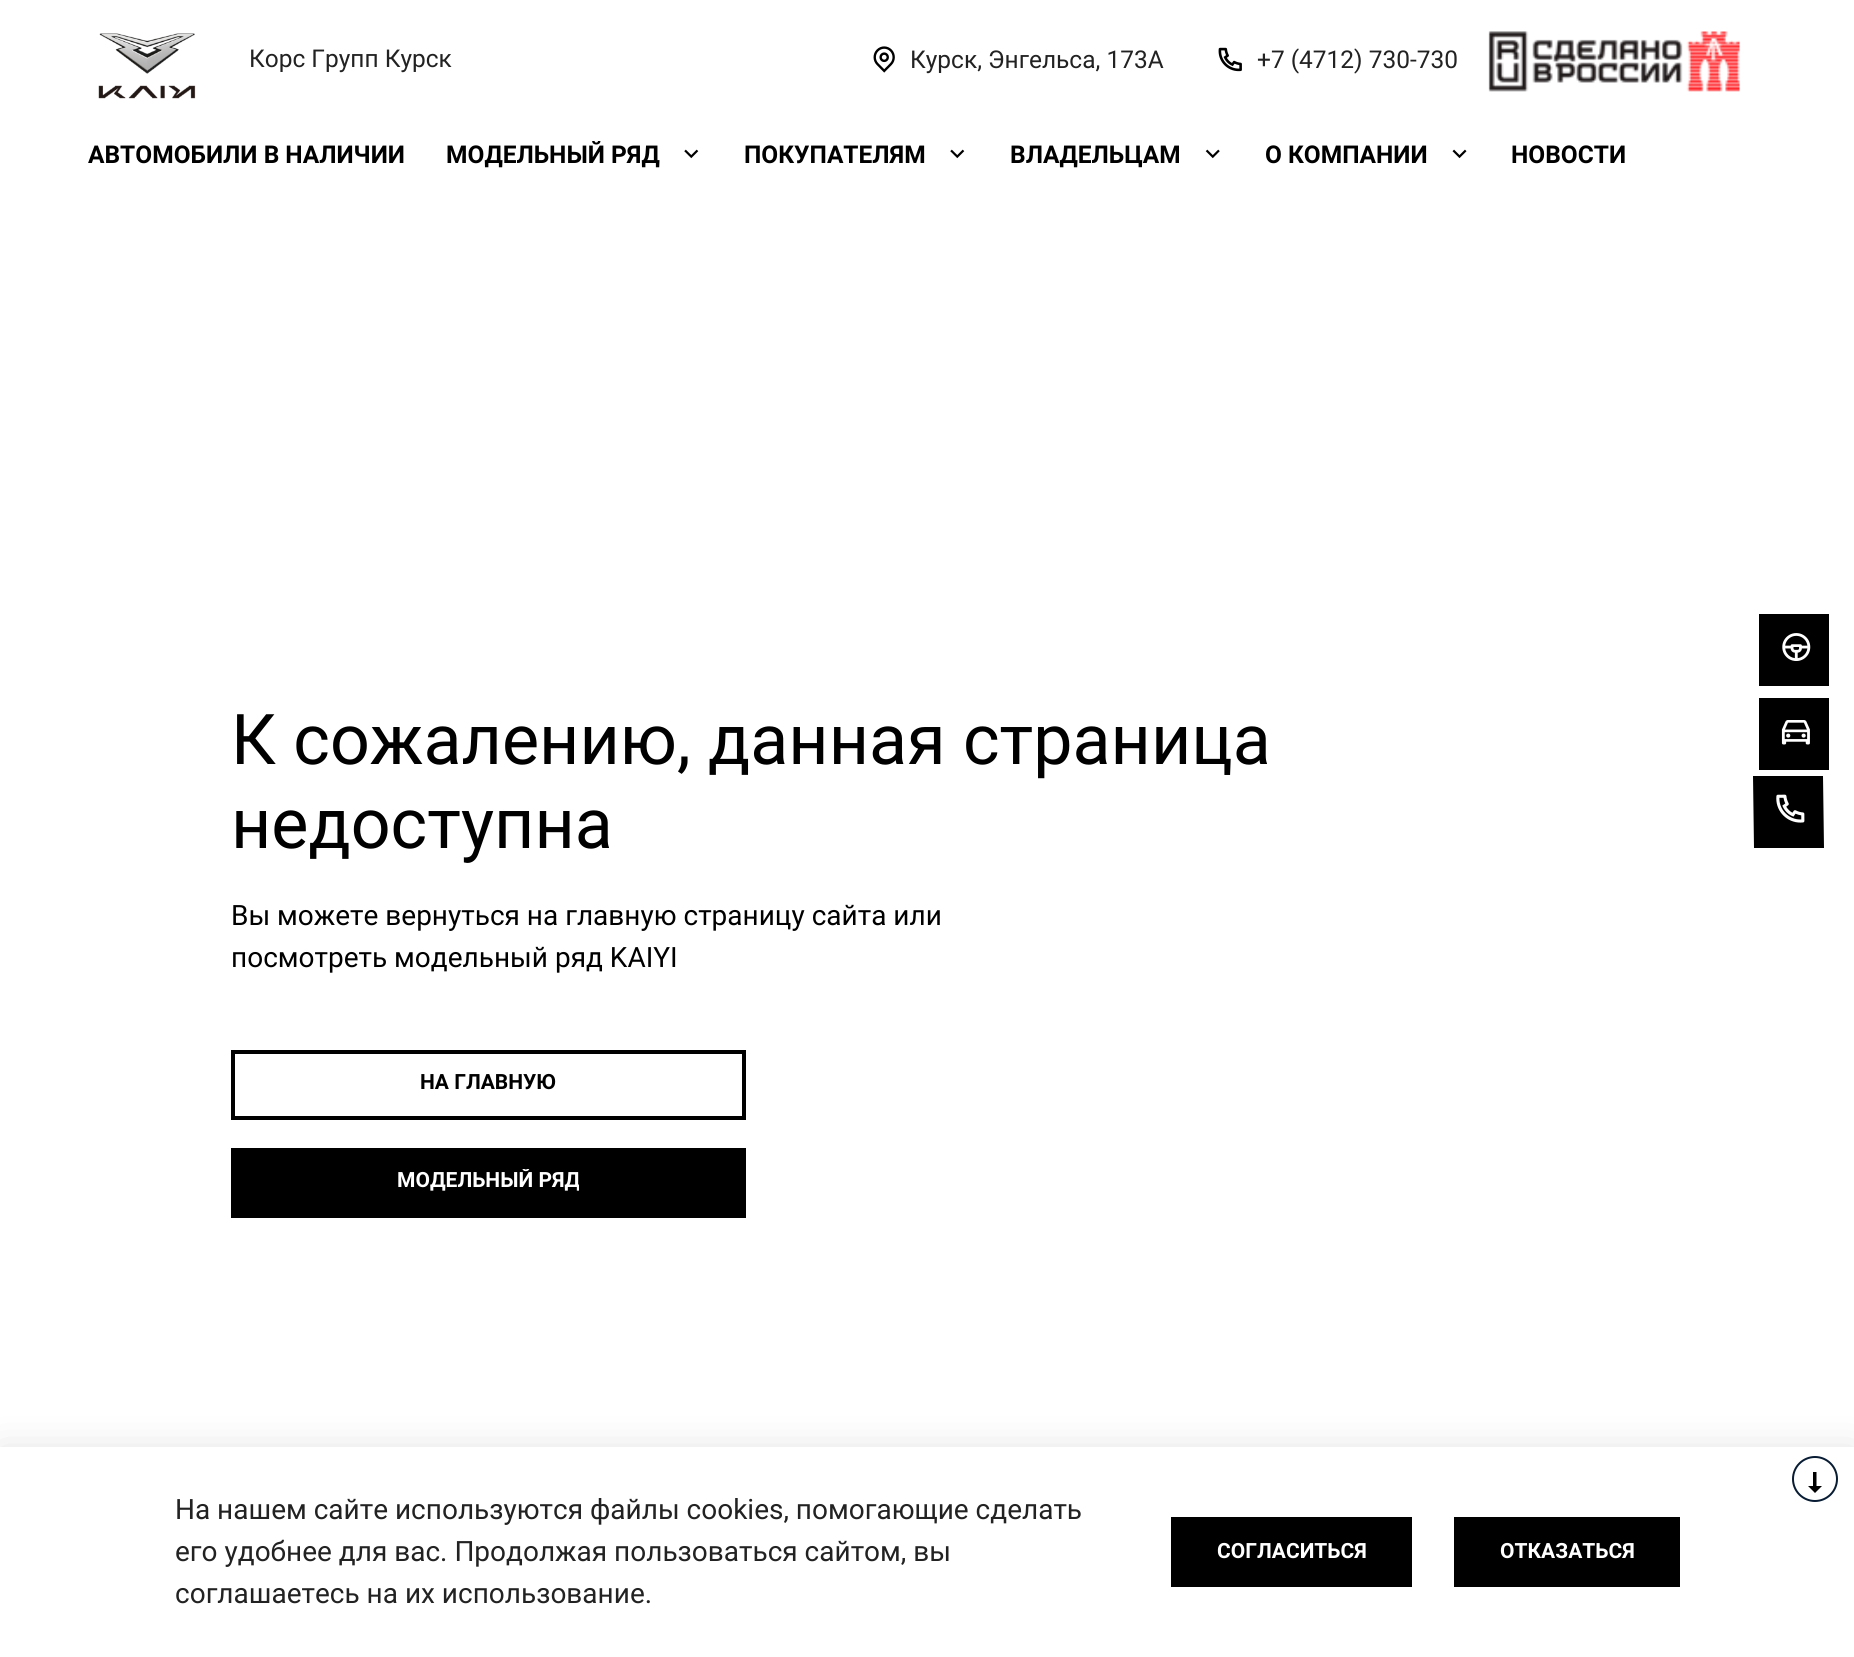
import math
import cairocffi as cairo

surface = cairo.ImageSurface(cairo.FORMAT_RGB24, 1854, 1657)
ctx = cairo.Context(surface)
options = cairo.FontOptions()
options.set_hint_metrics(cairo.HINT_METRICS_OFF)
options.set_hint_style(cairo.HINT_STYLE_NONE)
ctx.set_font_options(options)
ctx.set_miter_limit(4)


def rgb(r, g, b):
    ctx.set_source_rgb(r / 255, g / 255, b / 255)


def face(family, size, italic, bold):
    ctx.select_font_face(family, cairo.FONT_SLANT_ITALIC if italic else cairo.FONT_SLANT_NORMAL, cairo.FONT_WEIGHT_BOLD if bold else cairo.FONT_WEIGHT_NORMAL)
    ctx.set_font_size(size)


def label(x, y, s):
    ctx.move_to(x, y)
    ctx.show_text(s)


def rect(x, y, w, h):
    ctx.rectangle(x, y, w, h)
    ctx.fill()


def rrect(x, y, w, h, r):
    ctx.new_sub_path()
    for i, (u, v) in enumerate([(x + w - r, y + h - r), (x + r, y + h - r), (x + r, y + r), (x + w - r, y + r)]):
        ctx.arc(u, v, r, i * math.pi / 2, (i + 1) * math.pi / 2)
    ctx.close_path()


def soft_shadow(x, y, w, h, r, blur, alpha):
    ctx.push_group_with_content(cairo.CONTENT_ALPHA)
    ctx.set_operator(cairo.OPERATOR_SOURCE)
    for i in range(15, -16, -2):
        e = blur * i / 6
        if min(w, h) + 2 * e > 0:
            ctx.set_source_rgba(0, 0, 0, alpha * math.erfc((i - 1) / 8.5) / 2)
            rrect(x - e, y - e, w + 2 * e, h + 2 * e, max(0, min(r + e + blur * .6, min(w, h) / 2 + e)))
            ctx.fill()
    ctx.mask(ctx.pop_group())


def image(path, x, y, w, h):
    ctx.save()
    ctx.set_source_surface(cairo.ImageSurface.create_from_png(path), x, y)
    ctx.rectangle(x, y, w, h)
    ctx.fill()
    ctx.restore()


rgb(255, 255, 255)
ctx.paint()
image('image0.png', 98, 33, 98, 66)
face('Roboto', 24.5, 0, 0)
rgb(34, 34, 34)
label(249, 67, 'Корс Групп Курск')
image('image1.png', 873, 46, 22, 27)
label(910, 68, 'Курск, Энгельса, 173А')
image('image2.png', 1218, 47, 24, 25)
label(1257, 68, '+7 (4712) 730-730')
image('image3.png', 1488, 31, 252, 61)
face('Roboto', 24.5, 0, 1)
rgb(0, 0, 0)
label(88, 163, 'АВТОМОБИЛИ В НАЛИЧИИ')
label(446, 163, 'МОДЕЛЬНЫЙ РЯД')
image('image4.png', 684, 149, 15, 10)
label(744, 163, 'ПОКУПАТЕЛЯМ')
image('image4.png', 950, 149, 15, 10)
label(1010, 163, 'ВЛАДЕЛЬЦАМ')
image('image5.png', 1205, 149, 15, 10)
label(1265, 163, 'О КОМПАНИИ')
image('image6.png', 1452, 149, 15, 10)
label(1511, 163, 'НОВОСТИ')
face('Roboto', 70, 0, 0)
label(231, 764, 'К сожалению, данная страница')
label(231, 848, 'недоступна')
face('Roboto', 28, 0, 0)
label(231, 925, 'Вы можете вернуться на главную страницу сайта или')
label(231, 967, 'посмотреть модельный ряд KAIYI')
ctx.rectangle(233, 1052, 511, 66)
ctx.set_line_width(4)
ctx.stroke()
face('Roboto', 21, 0, 1)
label(420, 1089, 'НА ГЛАВНУЮ')
rect(231, 1148, 515, 70)
ctx.save()
ctx.rectangle(397, 1169, 182, 26)
ctx.clip()
rgb(255, 255, 255)
label(397, 1187, 'МОДЕЛЬНЫЙ РЯД')
ctx.restore()
rect(1759, 614, 70, 72)
image('image7.png', 1782, 633, 29, 28)
rect(1759, 698, 70, 72)
image('image8.png', 1781, 720, 29, 25)
ctx.new_path()
ctx.move_to(1753, 776)
ctx.line_to(1823, 776)
ctx.line_to(1824, 848)
ctx.line_to(1754, 848)
ctx.close_path()
ctx.fill()
image('image9.png', 1776, 794, 29, 29)
rgb(0, 0, 0)
soft_shadow(0, 1454, 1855, 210, 0, 21, 0.14)
rgb(255, 255, 255)
rect(0, 1447, 1854, 210)
ctx.arc(1815, 1479, 22, 0, 2 * math.pi)
rgb(8, 28, 52)
ctx.set_line_width(2)
ctx.stroke()
rgb(0, 0, 0)
ctx.new_path()
ctx.move_to(1815, 1493)
ctx.line_to(1822, 1486)
ctx.line_to(1816.5, 1486)
ctx.line_to(1816.5, 1472)
ctx.line_to(1813, 1472)
ctx.line_to(1813, 1486)
ctx.line_to(1808, 1486)
ctx.close_path()
ctx.fill()
face('Roboto', 28, 0, 0)
rgb(34, 34, 34)
label(175, 1519, 'На нашем сайте используются файлы cookies, помогающие сделать')
label(175, 1561, 'его удобнее для вас. Продолжая пользоваться сайтом, вы')
label(175, 1603, 'соглашаетесь на их использование.')
rgb(0, 0, 0)
rect(1171, 1517, 241, 70)
face('Roboto', 21, 0, 1)
rgb(255, 255, 255)
label(1217, 1558, 'СОГЛАСИТЬСЯ')
rgb(0, 0, 0)
rect(1454, 1517, 226, 70)
rgb(255, 255, 255)
label(1500, 1558, 'ОТКАЗАТЬСЯ')
surface.write_to_png('render.png')
